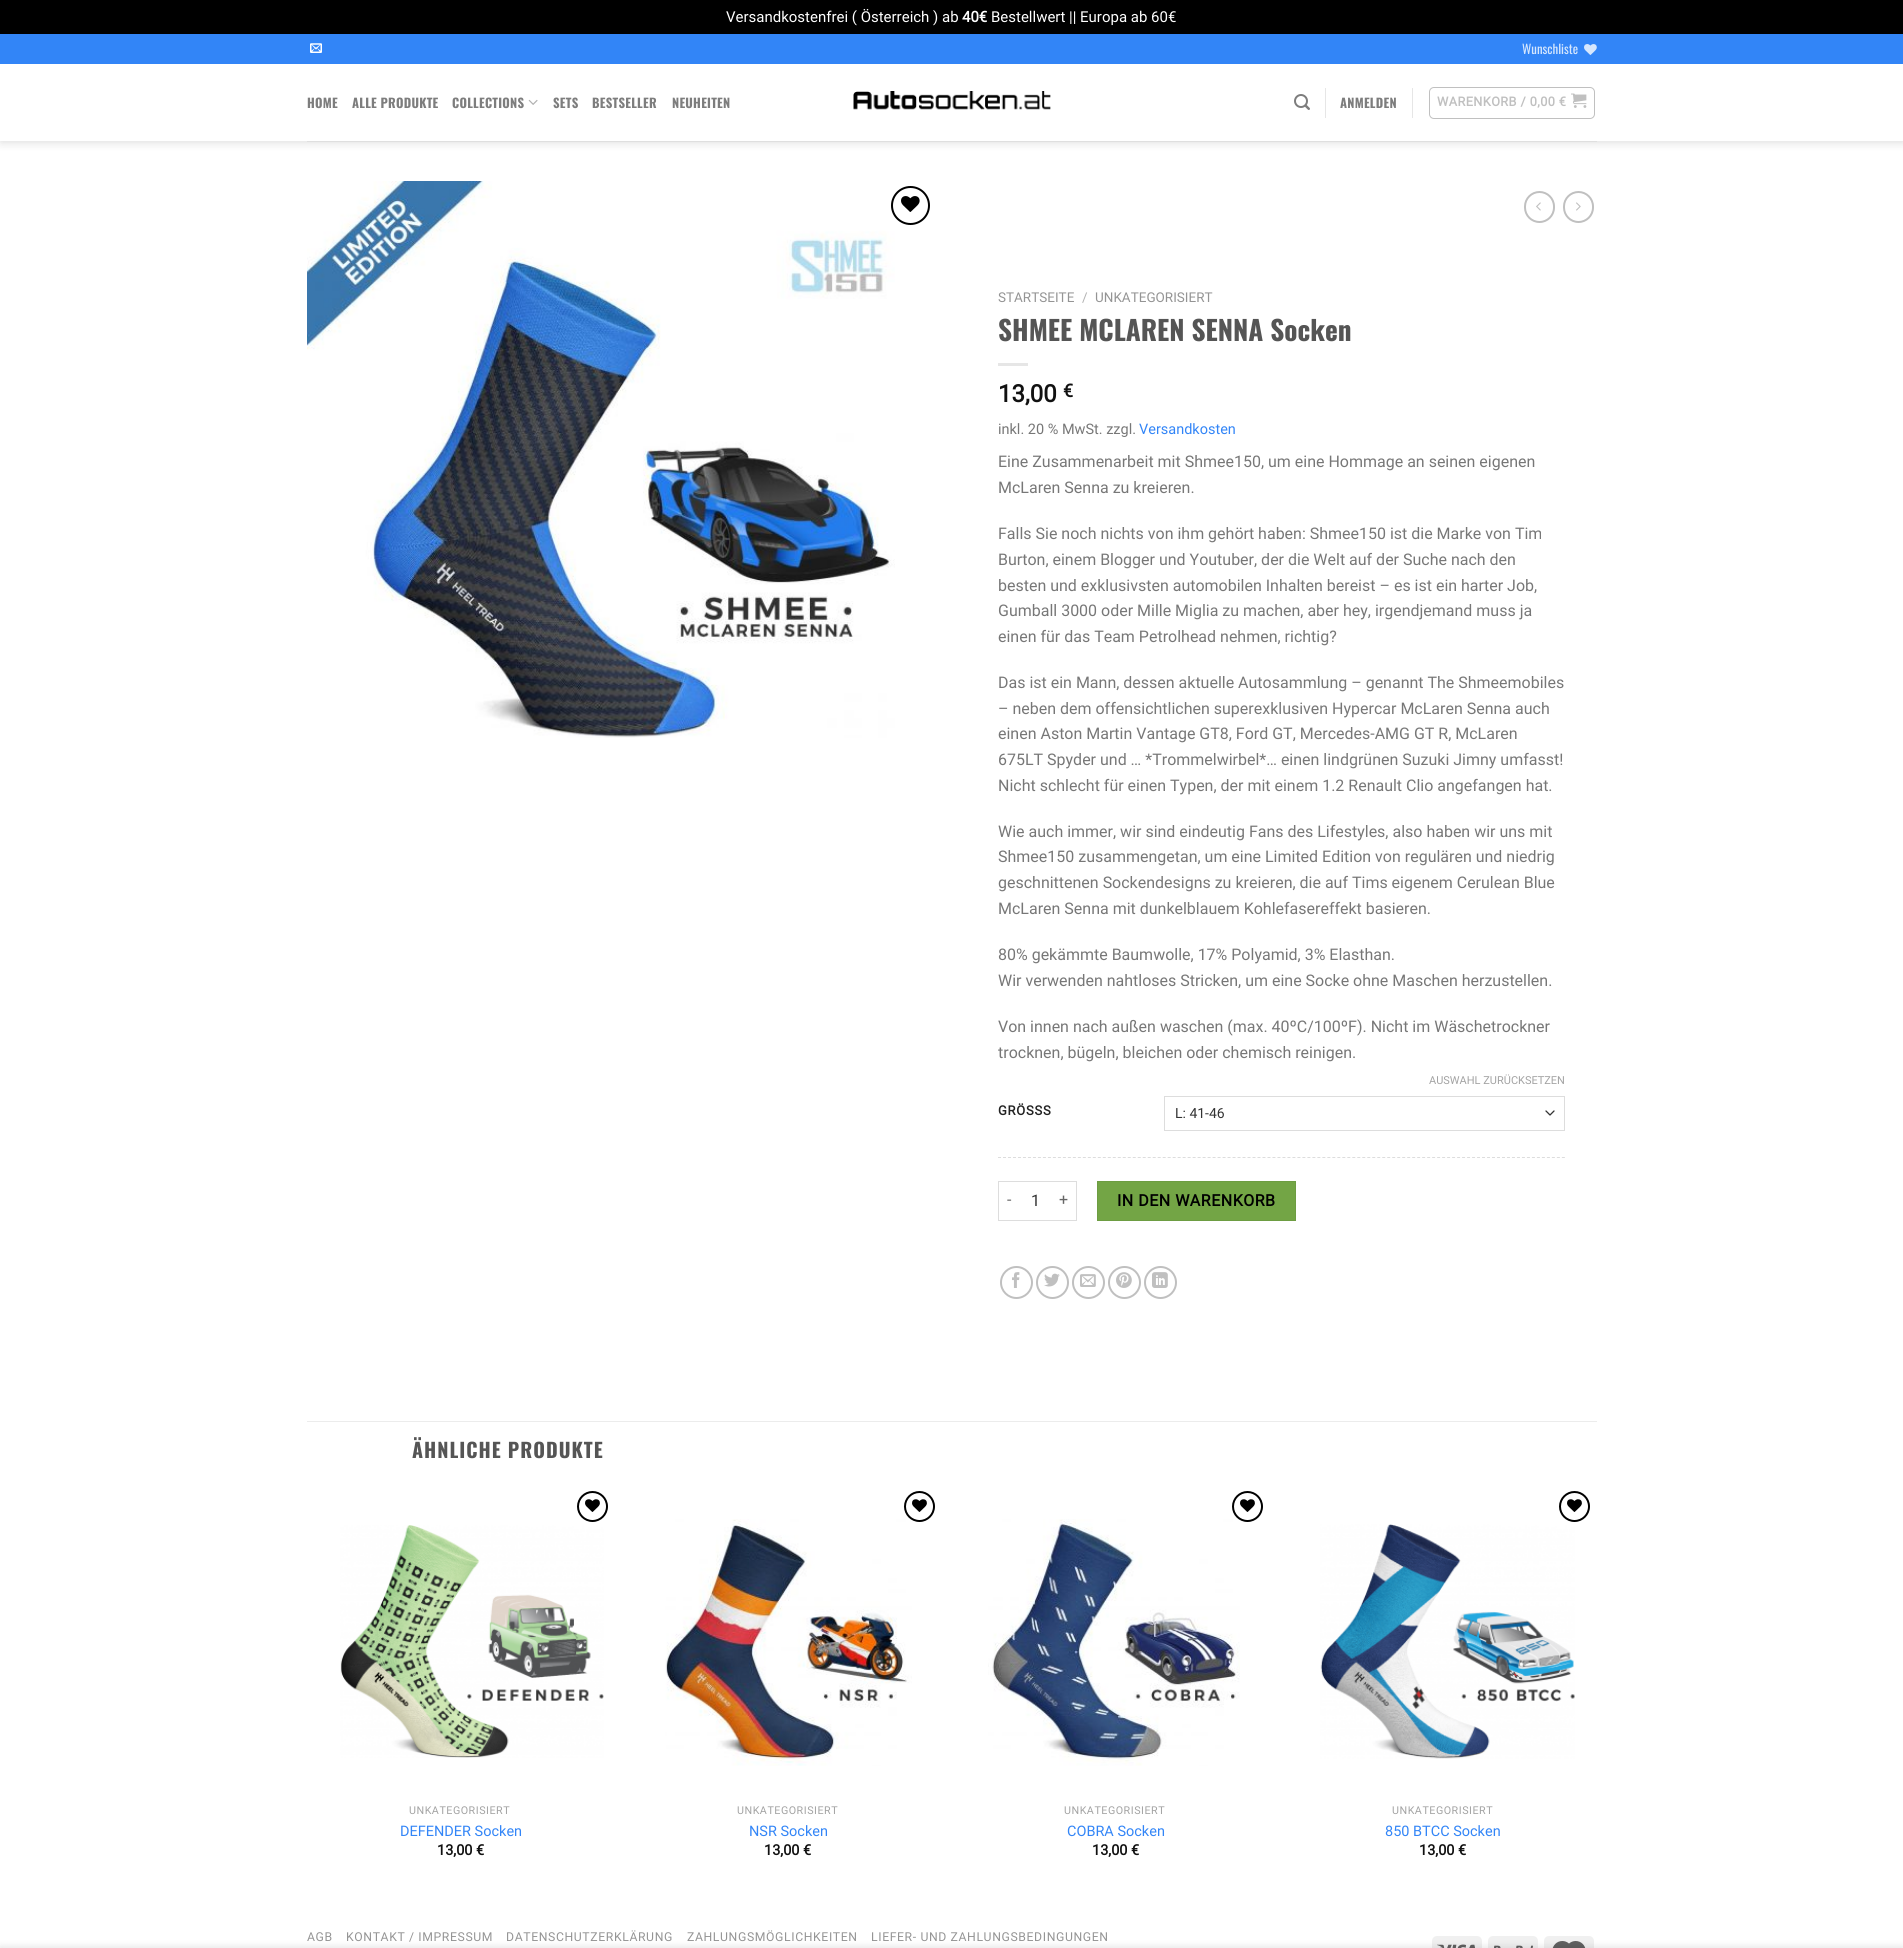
import math
import cairocffi as cairo

surface = cairo.ImageSurface(cairo.FORMAT_RGB24, 1903, 1948)
ctx = cairo.Context(surface)
options = cairo.FontOptions()
options.set_hint_metrics(cairo.HINT_METRICS_OFF)
options.set_hint_style(cairo.HINT_STYLE_NONE)
ctx.set_font_options(options)
ctx.set_miter_limit(4)


def rgb(r, g, b):
    ctx.set_source_rgb(r / 255, g / 255, b / 255)


def face(family, size, italic, bold):
    ctx.select_font_face(family, cairo.FONT_SLANT_ITALIC if italic else cairo.FONT_SLANT_NORMAL, cairo.FONT_WEIGHT_BOLD if bold else cairo.FONT_WEIGHT_NORMAL)
    ctx.set_font_size(size)


def label(x, y, s):
    ctx.move_to(x, y)
    ctx.show_text(s)


def tracked(x, y, s, letter, word):
    ctx.move_to(x, y)
    for ch in s:
        ctx.show_text(ch)
        ctx.rel_move_to(letter + word * (ch == ' '), 0)


def rect(x, y, w, h):
    ctx.rectangle(x, y, w, h)
    ctx.fill()


def rrect(x, y, w, h, r):
    ctx.new_sub_path()
    for i, (u, v) in enumerate([(x + w - r, y + h - r), (x + r, y + h - r), (x + r, y + r), (x + w - r, y + r)]):
        ctx.arc(u, v, r, i * math.pi / 2, (i + 1) * math.pi / 2)
    ctx.close_path()


def soft_shadow(x, y, w, h, r, blur, alpha):
    ctx.push_group_with_content(cairo.CONTENT_ALPHA)
    ctx.set_operator(cairo.OPERATOR_SOURCE)
    for i in range(15, -16, -2):
        e = blur * i / 6
        if min(w, h) + 2 * e > 0:
            ctx.set_source_rgba(0, 0, 0, alpha * math.erfc((i - 1) / 8.5) / 2)
            rrect(x - e, y - e, w + 2 * e, h + 2 * e, max(0, min(r + e + blur * .6, min(w, h) / 2 + e)))
            ctx.fill()
    ctx.mask(ctx.pop_group())


def image(path, x, y, w, h):
    ctx.save()
    ctx.set_source_surface(cairo.ImageSurface.create_from_png(path), x, y)
    ctx.rectangle(x, y, w, h)
    ctx.fill()
    ctx.restore()


rgb(255, 255, 255)
ctx.paint()
rgb(0, 0, 0)
rect(0, 0, 1903, 34)
face('Roboto', 15, 0, 0)
rgb(255, 255, 255)
label(726, 22, 'Versandkostenfrei ( Österreich ) ab')
face('Roboto', 15, 0, 1)
label(962, 22, '40€')
face('Roboto', 15, 0, 0)
label(991, 22, 'Bestellwert || Europa ab 60€')
ctx.save()
ctx.set_fill_rule(cairo.FILL_RULE_EVEN_ODD)
ctx.new_path()
ctx.move_to(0, 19)
ctx.line_to(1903, 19)
ctx.line_to(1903, 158)
ctx.line_to(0, 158)
ctx.close_path()
ctx.move_to(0, 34)
ctx.line_to(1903, 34)
ctx.line_to(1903, 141)
ctx.line_to(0, 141)
ctx.close_path()
ctx.clip()
rgb(0, 0, 0)
soft_shadow(1, 35, 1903, 107, 0, 5, 0.15)
ctx.restore()
rgb(50, 133, 247)
rect(0, 34, 1903, 30)
image('image0.png', 310, 43, 12, 10)
face('Oswald', 12.75, 0, 0)
rgb(214, 231, 253)
label(1522, 54, 'Wunschliste')
image('image1.png', 1584, 44, 13, 11)
face('Oswald', 12.75, 0, 1)
rgb(125, 125, 125)
tracked(307, 108, 'HOME', 0.25, 0)
tracked(352, 108, 'ALLE PRODUKTE', 0.25, 0)
tracked(452, 108, 'COLLECTIONS', 0.25, 0)
image('image2.png', 528, 99, 10, 6)
tracked(553, 108, 'SETS', 0.25, 0)
tracked(592, 108, 'BESTSELLER', 0.25, 0)
tracked(672, 108, 'NEUHEITEN', 0.25, 0)
image('image3.png', 853, 91, 198, 19)
image('image4.png', 1294, 94, 16, 16)
rgb(230, 230, 230)
rect(1325, 88, 1, 30)
rgb(125, 125, 125)
tracked(1340, 108, 'ANMELDEN', 0.25, 0)
rgb(230, 230, 230)
rect(1412, 88, 1, 30)
rrect(1429.5, 87.5, 165, 31, 4.5)
rgb(192, 192, 192)
ctx.set_line_width(1)
ctx.stroke()
face('Roboto', 12.75, 0, 1)
tracked(1437, 106, 'WARENKORB / 0,00 €', 0.4, 0)
image('image5.png', 1571, 93, 16, 15)
rgb(223, 223, 223)
rect(307, 141, 1290, 1)
image('image6.png', 307, 181, 588, 557)
ctx.arc(910.5, 205.5, 18.5, 0, 2 * math.pi)
rgb(0, 0, 0)
ctx.set_line_width(2)
ctx.stroke()
image('image7.png', 901, 196, 19, 16)
rrect(1525, 192, 29, 30, 14.5)
rgb(192, 192, 192)
ctx.stroke()
image('image8.png', 1536, 202, 5, 9)
rrect(1564, 192, 29, 30, 14.5)
ctx.stroke()
image('image9.png', 1576, 202, 5, 9)
face('Roboto', 13.5, 0, 0)
rgb(148, 148, 148)
label(998, 302, 'STARTSEITE')
rgb(178, 178, 178)
label(1082, 302, '/')
rgb(148, 148, 148)
label(1095, 302, 'UNKATEGORISIERT')
face('Oswald', 27.25, 0, 1)
rgb(85, 85, 85)
label(998, 341, 'SHMEE MCLAREN SENNA Socken')
rgb(230, 230, 230)
rect(998, 363, 30, 3)
face('Roboto', 24, 0, 1)
rgb(17, 17, 17)
label(998, 402, '13,00')
face('Roboto', 18, 0, 1)
label(1063, 397, '€')
face('Roboto', 14.5, 0, 0)
rgb(119, 119, 119)
label(998, 434, 'inkl. 20 % MwSt. zzgl.')
rgb(50, 133, 247)
label(1139, 434, 'Versandkosten')
face('Roboto', 16, 0, 0)
rgb(119, 119, 119)
label(998, 467, 'Eine Zusammenarbeit mit Shmee150, um eine Hommage an seinen eigenen')
label(998, 493, 'McLaren Senna zu kreieren.')
label(998, 539, 'Falls Sie noch nichts von ihm gehört haben: Shmee150 ist die Marke von Tim')
label(998, 565, 'Burton, einem Blogger und Youtuber, der die Welt auf der Suche nach den')
label(998, 591, 'besten und exklusivsten automobilen Inhalten bereist – es ist ein harter Job,')
label(998, 616, 'Gumball 3000 oder Mille Miglia zu machen, aber hey, irgendjemand muss ja')
label(998, 642, 'einen für das Team Petrolhead nehmen, richtig?')
label(998, 688, 'Das ist ein Mann, dessen aktuelle Autosammlung – genannt The Shmeemobiles')
label(998, 714, '– neben dem offensichtlichen superexklusiven Hypercar McLaren Senna auch')
label(998, 739, 'einen Aston Martin Vantage GT8, Ford GT, Mercedes-AMG GT R, McLaren')
label(998, 765, '675LT Spyder und … *Trommelwirbel*… einen lindgrünen Suzuki Jimny umfasst!')
label(998, 791, 'Nicht schlecht für einen Typen, der mit einem 1.2 Renault Clio angefangen hat.')
label(998, 837, 'Wie auch immer, wir sind eindeutig Fans des Lifestyles, also haben wir uns mit')
label(998, 862, 'Shmee150 zusammengetan, um eine Limited Edition von regulären und niedrig')
label(998, 888, 'geschnittenen Sockendesigns zu kreieren, die auf Tims eigenem Cerulean Blue')
label(998, 914, 'McLaren Senna mit dunkelblauem Kohlefasereffekt basieren.')
label(998, 960, '80% gekämmte Baumwolle, 17% Polyamid, 3% Elasthan.')
label(998, 986, 'Wir verwenden nahtloses Stricken, um eine Socke ohne Maschen herzustellen.')
label(998, 1032, 'Von innen nach außen waschen (max. 40ºC/100ºF). Nicht im Wäschetrockner')
label(998, 1058, 'trocknen, bügeln, bleichen oder chemisch reinigen.')
face('Roboto', 13, 0, 1)
rgb(34, 34, 34)
tracked(998, 1115, 'GRÖSSS', 0.75, 0)
face('Roboto', 11, 0, 0)
rgb(163, 163, 163)
label(1429, 1084, 'AUSWAHL ZURÜCKSETZEN')
ctx.new_path()
ctx.move_to(1546, 1111)
ctx.line_to(1550, 1115)
ctx.line_to(1554, 1111)
rgb(51, 51, 51)
ctx.set_line_width(1.3)
ctx.set_line_cap(cairo.LINE_CAP_ROUND)
ctx.set_line_join(cairo.LINE_JOIN_ROUND)
ctx.stroke()
ctx.rectangle(1164.5, 1096.5, 400, 34)
rgb(221, 221, 221)
ctx.set_line_width(1)
ctx.set_line_cap(cairo.LINE_CAP_BUTT)
ctx.set_line_join(cairo.LINE_JOIN_MITER)
ctx.stroke()
face('Roboto', 14, 0, 0)
rgb(51, 51, 51)
label(1175, 1118, 'L: 41-46')
ctx.new_path()
ctx.move_to(998, 1157.5)
ctx.line_to(1565, 1157.5)
rgb(221, 221, 221)
ctx.set_dash([3, 1.99])
ctx.stroke()
rect(998, 1181, 79, 1)
rect(998, 1220, 53, 1)
rect(998, 1181, 1, 40)
face('Roboto', 16, 0, 0)
rgb(102, 102, 102)
label(1007, 1205, '-')
rgb(51, 51, 51)
label(1031, 1206, '1')
rgb(221, 221, 221)
rect(1076, 1181, 1, 40)
rect(1051, 1220, 26, 1)
rgb(102, 102, 102)
label(1059, 1205, '+')
rgb(115, 165, 69)
ctx.rectangle(1097.5, 1181.5, 198, 39)
ctx.fill_preserve()
rgb(109, 157, 66)
ctx.set_dash([])
ctx.stroke()
face('Roboto', 16, 0, 1)
rgb(0, 0, 0)
tracked(1117, 1206, 'IN DEN WARENKORB', 0.5, 0)
ctx.new_path()
ctx.arc(1016.5, 1282.5, 15.5, 0, 2 * math.pi)
rgb(192, 192, 192)
ctx.set_line_width(2)
ctx.stroke()
image('image10.png', 1012, 1272, 8, 16)
ctx.arc(1052.5, 1282.5, 15.5, 0, 2 * math.pi)
ctx.stroke()
image('image11.png', 1044, 1273, 16, 14)
ctx.arc(1088.5, 1282.5, 15.5, 0, 2 * math.pi)
ctx.stroke()
image('image12.png', 1080, 1274, 16, 13)
ctx.arc(1124.5, 1282.5, 15.5, 0, 2 * math.pi)
ctx.stroke()
image('image13.png', 1116, 1272, 16, 16)
ctx.arc(1160.5, 1282.5, 15.5, 0, 2 * math.pi)
ctx.stroke()
image('image14.png', 1152, 1272, 16, 16)
rgb(236, 236, 236)
rect(307, 1421, 1290, 1)
face('Oswald', 20, 0, 1)
rgb(85, 85, 85)
tracked(412, 1458, 'ÄHNLICHE PRODUKTE', 1, 0)
ctx.new_path()
ctx.arc(592.5, 1506.5, 14.5, 0, 2 * math.pi)
rgb(0, 0, 0)
ctx.stroke()
image('image15.png', 585, 1499, 15, 13)
image('image16.png', 340, 1525, 264, 233)
face('Roboto', 10.75, 0, 0)
rgb(163, 163, 163)
tracked(409, 1814, 'UNKATEGORISIERT', 0.5, 0)
face('Roboto', 14.5, 0, 0)
rgb(50, 133, 247)
label(400, 1836, 'DEFENDER Socken')
face('Roboto', 14.5, 0, 1)
rgb(17, 17, 17)
label(437, 1855, '13,00 €')
image('image17.png', 665, 1519, 247, 247)
ctx.arc(919.5, 1506.5, 14.5, 0, 2 * math.pi)
rgb(0, 0, 0)
ctx.stroke()
image('image15.png', 912, 1499, 15, 13)
face('Roboto', 10.75, 0, 0)
rgb(163, 163, 163)
tracked(737, 1814, 'UNKATEGORISIERT', 0.5, 0)
face('Roboto', 14.5, 0, 0)
rgb(50, 133, 247)
label(749, 1836, 'NSR Socken')
face('Roboto', 14.5, 0, 1)
rgb(17, 17, 17)
label(764, 1855, '13,00 €')
image('image18.png', 988, 1519, 252, 247)
ctx.arc(1247.5, 1506.5, 14.5, 0, 2 * math.pi)
rgb(0, 0, 0)
ctx.stroke()
image('image15.png', 1240, 1499, 15, 13)
face('Roboto', 10.75, 0, 0)
rgb(163, 163, 163)
tracked(1064, 1814, 'UNKATEGORISIERT', 0.5, 0)
face('Roboto', 14.5, 0, 0)
rgb(50, 133, 247)
label(1067, 1836, 'COBRA Socken')
face('Roboto', 14.5, 0, 1)
rgb(17, 17, 17)
label(1092, 1855, '13,00 €')
ctx.new_path()
ctx.arc(1574.5, 1506.5, 14.5, 0, 2 * math.pi)
rgb(0, 0, 0)
ctx.stroke()
image('image15.png', 1567, 1499, 15, 13)
image('image19.png', 1320, 1524, 255, 235)
face('Roboto', 10.75, 0, 0)
rgb(163, 163, 163)
tracked(1392, 1814, 'UNKATEGORISIERT', 0.5, 0)
face('Roboto', 14.5, 0, 0)
rgb(50, 133, 247)
label(1385, 1836, '850 BTCC Socken')
face('Roboto', 14.5, 0, 1)
rgb(17, 17, 17)
label(1419, 1855, '13,00 €')
face('Roboto', 12.25, 0, 0)
rgb(148, 148, 148)
tracked(307, 1941, 'AGB', 0.6, 0)
tracked(346, 1941, 'KONTAKT / IMPRESSUM', 0.6, 0)
tracked(506, 1941, 'DATENSCHUTZERKLÄRUNG', 0.6, 0)
tracked(687, 1941, 'ZAHLUNGSMÖGLICHKEITEN', 0.6, 0)
tracked(871, 1941, 'LIEFER- UND ZAHLUNGSBEDINGUNGEN', 0.6, 0)
rgb(240, 240, 240)
rrect(1432, 1936, 50, 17, 5)
ctx.fill()
image('image20.png', 1437, 1944, 38, 4)
rrect(1488, 1936, 50, 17, 5)
ctx.fill()
image('image21.png', 1494, 1945, 39, 3)
rrect(1544, 1936, 50, 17, 5)
ctx.fill()
image('image22.png', 1552, 1941, 34, 7)
rgb(0, 0, 0)
soft_shadow(0, 1948, 1903, 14, 0, 4.5, 0.14)
surface.write_to_png('render.png')
